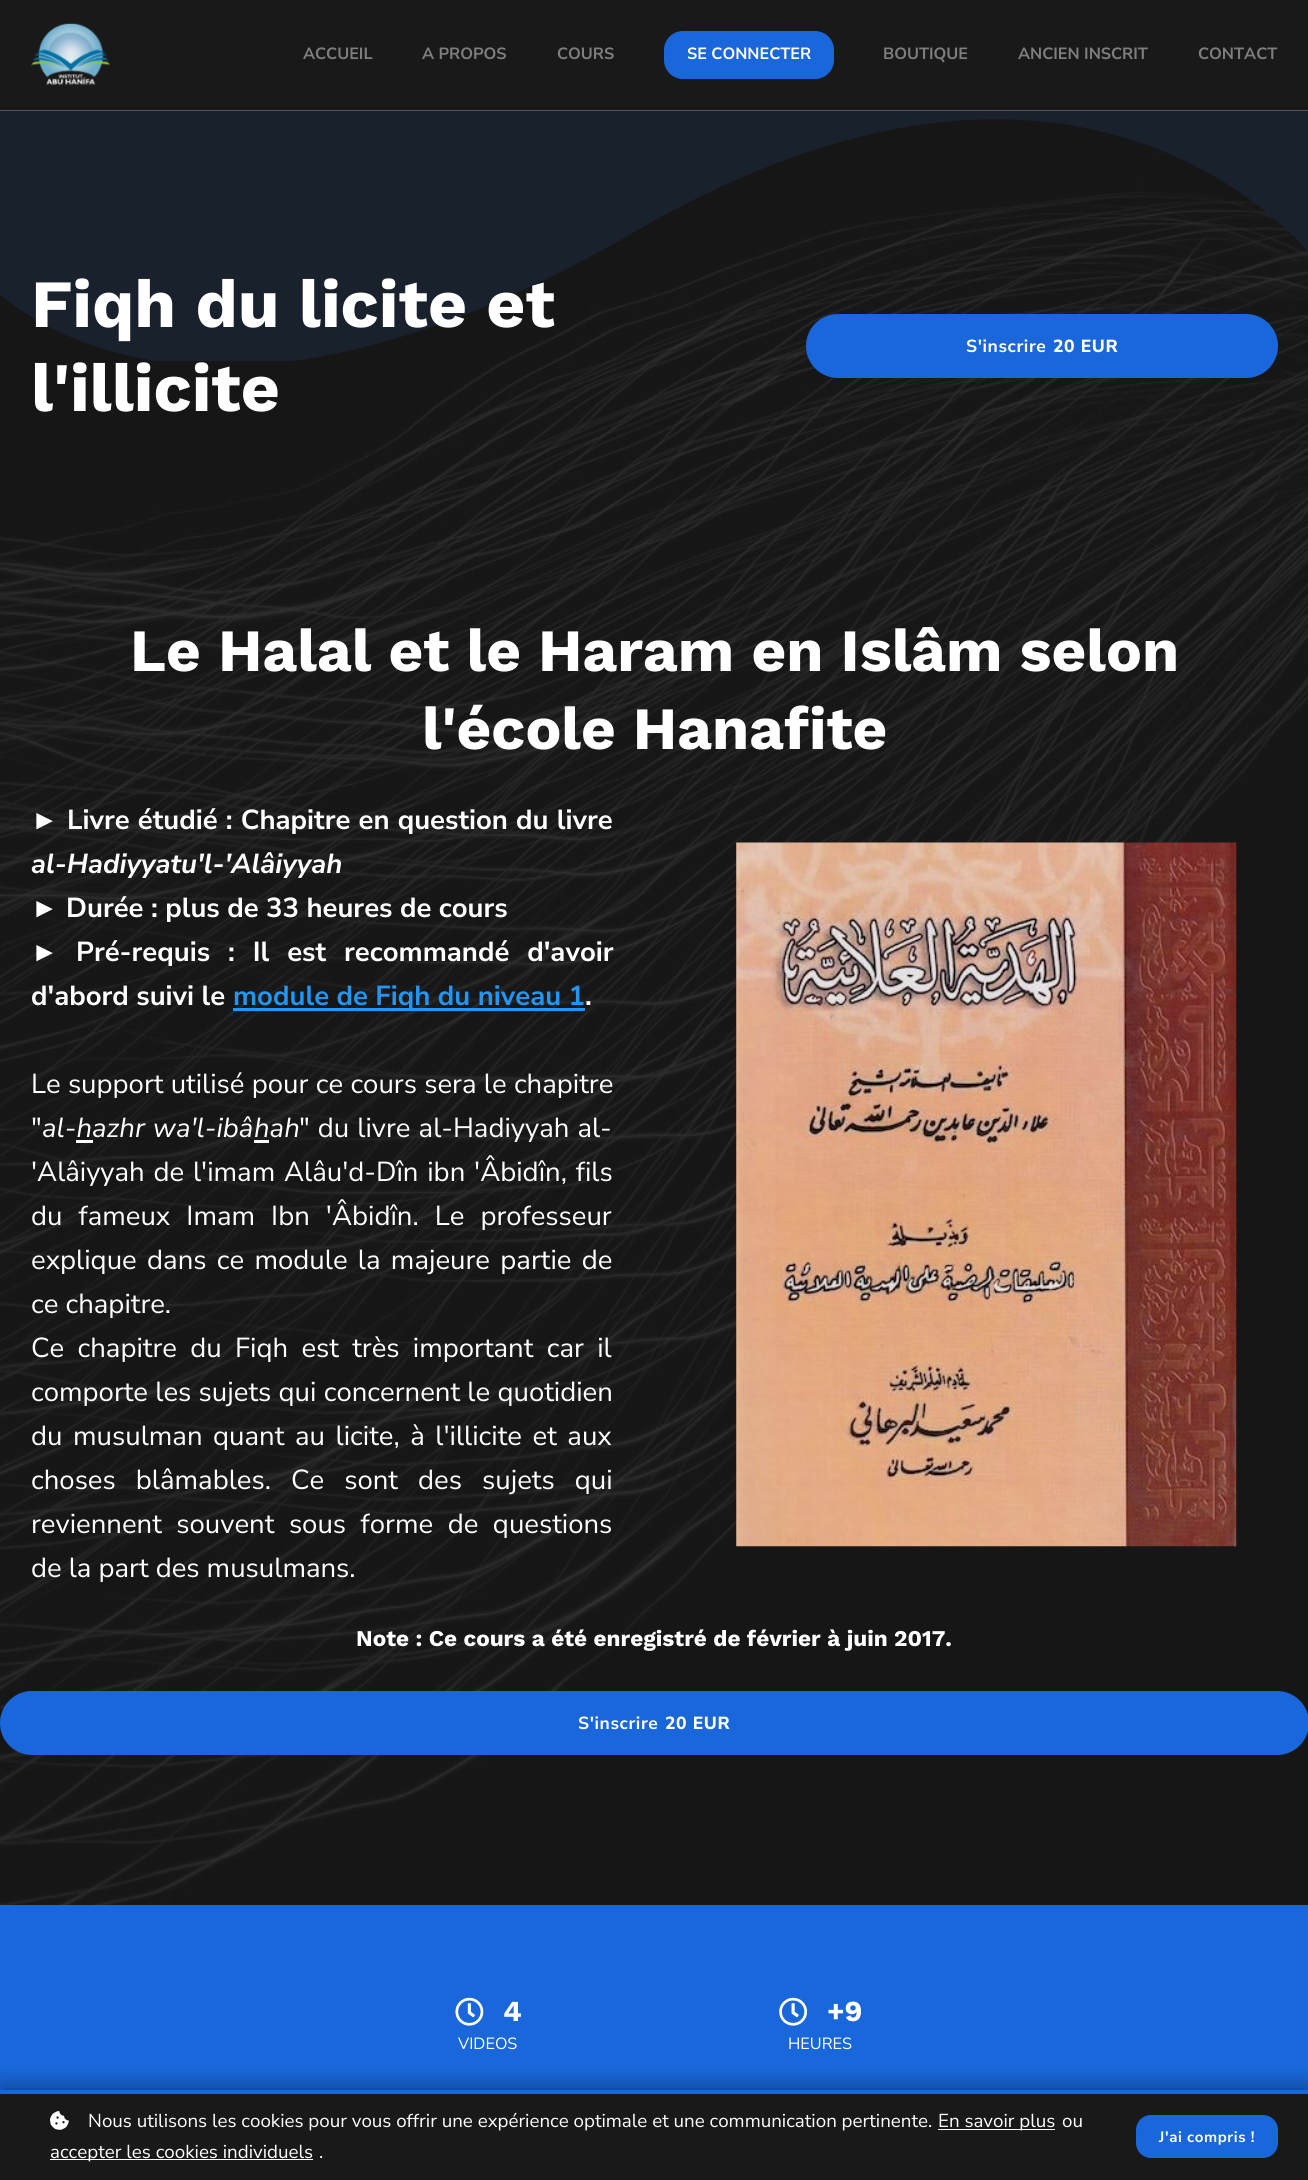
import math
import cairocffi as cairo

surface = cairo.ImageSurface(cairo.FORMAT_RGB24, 1308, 2180)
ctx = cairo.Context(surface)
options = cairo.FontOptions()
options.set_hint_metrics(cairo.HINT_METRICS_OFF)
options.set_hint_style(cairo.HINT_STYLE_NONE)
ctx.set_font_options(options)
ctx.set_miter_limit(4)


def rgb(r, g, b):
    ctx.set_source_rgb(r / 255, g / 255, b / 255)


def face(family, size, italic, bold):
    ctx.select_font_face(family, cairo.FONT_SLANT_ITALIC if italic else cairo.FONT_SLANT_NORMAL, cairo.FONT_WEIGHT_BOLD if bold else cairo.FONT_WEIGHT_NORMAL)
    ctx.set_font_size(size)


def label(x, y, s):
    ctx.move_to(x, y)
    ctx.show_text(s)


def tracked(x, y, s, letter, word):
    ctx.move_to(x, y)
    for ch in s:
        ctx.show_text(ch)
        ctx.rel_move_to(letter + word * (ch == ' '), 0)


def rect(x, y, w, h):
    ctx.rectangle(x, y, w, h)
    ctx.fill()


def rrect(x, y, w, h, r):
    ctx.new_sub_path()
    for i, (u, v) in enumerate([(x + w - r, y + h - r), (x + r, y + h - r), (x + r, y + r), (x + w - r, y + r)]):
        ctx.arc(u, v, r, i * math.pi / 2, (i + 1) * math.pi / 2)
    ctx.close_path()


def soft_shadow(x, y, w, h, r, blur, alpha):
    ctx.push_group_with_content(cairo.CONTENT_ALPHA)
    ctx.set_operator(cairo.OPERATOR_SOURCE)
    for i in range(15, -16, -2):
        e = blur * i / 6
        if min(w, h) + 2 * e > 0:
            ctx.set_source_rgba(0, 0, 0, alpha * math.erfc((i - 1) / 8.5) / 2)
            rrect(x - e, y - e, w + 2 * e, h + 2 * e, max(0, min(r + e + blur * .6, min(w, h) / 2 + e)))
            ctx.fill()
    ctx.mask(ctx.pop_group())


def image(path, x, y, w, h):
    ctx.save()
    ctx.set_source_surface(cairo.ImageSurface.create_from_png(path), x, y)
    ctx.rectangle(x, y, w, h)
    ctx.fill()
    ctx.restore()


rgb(255, 255, 255)
ctx.paint()
rgb(25, 25, 26)
rect(0, 0, 1308, 110)
rgb(86, 86, 88)
rect(0, 110, 1308, 1)
image('image0.png', 31, 23, 79, 63)
face('Nunito Sans', 16.25, 0, 1)
rgb(126, 126, 129)
label(303, 59, 'ACCUEIL')
label(422, 59, 'A PROPOS')
label(557, 59, 'COURS')
rgb(25, 103, 218)
rrect(664, 31, 170, 48, 19)
ctx.fill()
rgb(255, 255, 255)
label(687, 59, 'SE CONNECTER')
rgb(126, 126, 129)
label(883, 59, 'BOUTIQUE')
label(1018, 59, 'ANCIEN INSCRIT')
label(1198, 59, 'CONTACT')
image('image1.png', 0, 119, 1308, 1786)
ctx.save()
ctx.rectangle(0, 111, 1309, 250)
ctx.clip()
rgb(25, 33, 45)
ctx.new_path()
ctx.move_to(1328, 275)
ctx.curve_to(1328, 275, 1110, -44, 636, 231)
ctx.curve_to(163, 506, -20, 275, -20, 275)
ctx.line_to(-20, 108)
ctx.line_to(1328, 108)
ctx.close_path()
ctx.fill()
ctx.restore()
face('Work Sans', 67.5, 0, 1)
rgb(255, 255, 255)
label(31, 327, 'Fiqh du licite et')
label(31, 411, 'l\'illicite')
rgb(25, 103, 218)
rrect(806, 314, 472, 64, 32)
ctx.fill()
face('Nunito Sans', 17.5, 0, 1)
rgb(255, 255, 255)
tracked(966, 352, 'S\'inscrire', 0.6, 0)
face('Nunito Sans ExtraBold', 17.5, 0, 0)
tracked(1053, 352, '20 EUR', 0.6, 0)
face('Work Sans', 60, 0, 1)
label(130, 671, 'Le Halal et le Haram en Islâm selon')
label(422, 749, 'l\'école Hanafite')
face('Liberation Serif', 27.5, 0, 1)
label(31, 829, '►')
face('Nunito Sans', 27.5, 0, 1)
tracked(67, 829, 'Livre étudié : Chapitre en question du livre', 0, 0.75)
face('Nunito Sans', 27.5, 1, 1)
label(31, 873, 'al-Hadiyyatu\'l-\'Alâiyyah')
face('Liberation Serif', 27.5, 0, 1)
label(31, 917, '►')
face('Nunito Sans', 27.5, 0, 1)
label(66, 917, 'Durée : plus de 33 heures de cours')
face('Liberation Serif', 27.5, 0, 1)
label(31, 961, '►')
face('Nunito Sans', 27.5, 0, 1)
tracked(76, 961, 'Pré-requis : Il est recommandé d\'avoir', 0, 10.5)
label(31, 1005, 'd\'abord suivi le')
rgb(33, 150, 243)
rect(233, 1008, 352, 3)
label(233, 1005, 'module de Fiqh du niveau 1')
rgb(255, 255, 255)
label(585, 1005, '.')
face('Nunito Sans', 27.5, 0, 0)
tracked(31, 1093, 'Le support utilisé pour ce cours sera le chapitre', 0, 0.25)
label(31, 1137, '"')
face('Nunito Sans', 27.5, 1, 0)
label(42, 1137, 'al-h')
rect(76, 1140, 17, 3)
tracked(92, 1137, 'azhr wa\'l-ibâ', 0, 1)
label(254, 1137, 'hah')
rect(254, 1140, 15, 3)
face('Nunito Sans', 27.5, 0, 0)
tracked(299, 1137, '" du livre al-Hadiyyah al-', 0, 1)
tracked(31, 1181, '\'Alâiyyah de l\'imam Alâu\'d-Dîn ibn \'Âbidîn, fils', 0, 1.75)
tracked(31, 1225, 'du fameux Imam Ibn \'Âbidîn. Le professeur', 0, 9)
tracked(31, 1269, 'explique dans ce module la majeure partie de', 0, 3.25)
label(31, 1313, 'ce chapitre.')
tracked(31, 1357, 'Ce chapitre du Fiqh est très important car il', 0, 6.25)
tracked(31, 1401, 'comporte les sujets qui concernent le quotidien', 0, 0.25)
tracked(31, 1445, 'du musulman quant au licite, à l\'illicite et aux', 0, 3.5)
tracked(31, 1489, 'choses blâmables. Ce sont des sujets qui', 0, 13)
tracked(31, 1533, 'reviennent souvent sous forme de questions', 0, 7.5)
label(31, 1577, 'de la part des musulmans.')
image('image2.png', 736, 842, 501, 705)
face('Work Sans', 22.5, 0, 1)
label(356, 1646, 'Note : Ce cours a été enregistré de février à juin 2017.')
rgb(25, 103, 218)
rrect(0, 1691, 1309, 64, 32)
ctx.fill()
face('Nunito Sans', 17.5, 0, 1)
rgb(255, 255, 255)
tracked(578, 1729, 'S\'inscrire', 0.6, 0)
face('Nunito Sans ExtraBold', 17.5, 0, 0)
tracked(665, 1729, '20 EUR', 0.6, 0)
rgb(25, 103, 218)
rect(0, 1905, 1308, 189)
image('image3.png', 455, 1997, 29, 29)
face('Work Sans', 29, 0, 1)
rgb(255, 255, 255)
label(503, 2021, '4')
face('Nunito Sans', 16.25, 0, 0)
label(458, 2049, 'VIDEOS')
image('image4.png', 779, 1997, 29, 29)
face('Work Sans', 29, 0, 1)
label(827, 2021, '+9')
face('Nunito Sans', 16.25, 0, 0)
label(788, 2049, 'HEURES')
ctx.save()
ctx.rectangle(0, 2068, 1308, 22)
ctx.clip()
rgb(0, 0, 0)
soft_shadow(0, 2090, 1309, 90, 0, 12.5, 0.5)
ctx.restore()
rgb(25, 25, 26)
rect(0, 2094, 1308, 86)
image('image5.png', 50, 2111, 19, 19)
face('Nunito Sans', 18.75, 0, 0)
rgb(255, 255, 255)
label(88, 2127, 'Nous utilisons les cookies pour vous offrir une expérience optimale et une communication pertinente.')
rect(938, 2129, 117, 1)
label(938, 2127, 'En savoir plus')
label(1062, 2127, 'ou')
rect(50, 2159, 263, 1)
label(50, 2158, 'accepter les cookies individuels')
label(319, 2158, '.')
rgb(25, 103, 218)
rrect(1136, 2115, 142, 43, 15)
ctx.fill()
face('Nunito Sans', 15, 0, 1)
rgb(255, 255, 255)
tracked(1159, 2142, 'J\'ai compris !', 0.6, 0)
surface.write_to_png('render.png')
